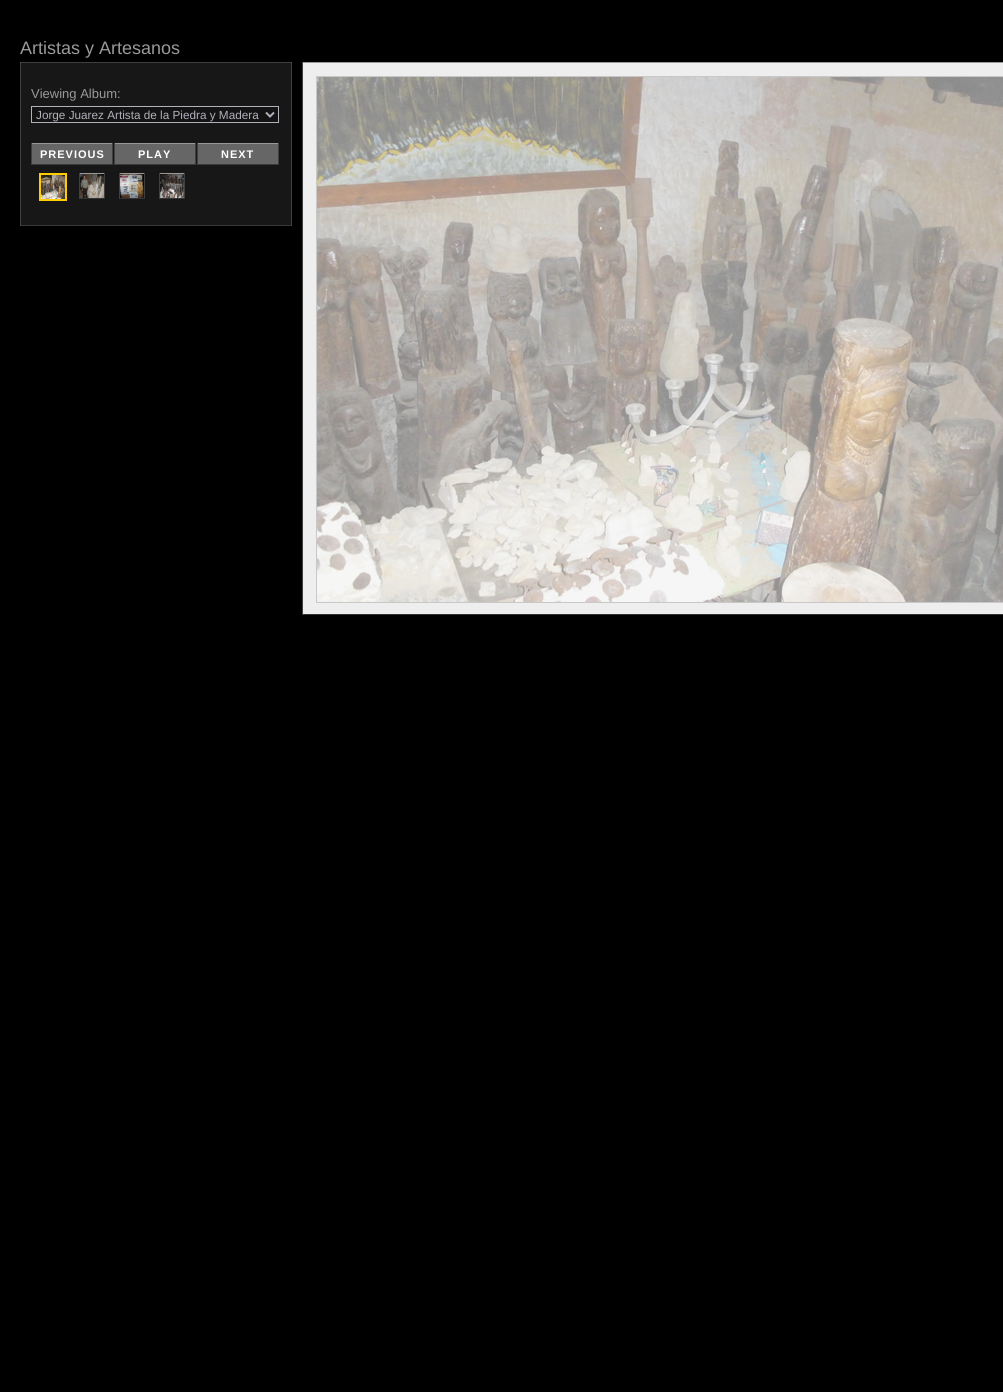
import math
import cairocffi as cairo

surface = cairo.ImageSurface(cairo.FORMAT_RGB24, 1003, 1392)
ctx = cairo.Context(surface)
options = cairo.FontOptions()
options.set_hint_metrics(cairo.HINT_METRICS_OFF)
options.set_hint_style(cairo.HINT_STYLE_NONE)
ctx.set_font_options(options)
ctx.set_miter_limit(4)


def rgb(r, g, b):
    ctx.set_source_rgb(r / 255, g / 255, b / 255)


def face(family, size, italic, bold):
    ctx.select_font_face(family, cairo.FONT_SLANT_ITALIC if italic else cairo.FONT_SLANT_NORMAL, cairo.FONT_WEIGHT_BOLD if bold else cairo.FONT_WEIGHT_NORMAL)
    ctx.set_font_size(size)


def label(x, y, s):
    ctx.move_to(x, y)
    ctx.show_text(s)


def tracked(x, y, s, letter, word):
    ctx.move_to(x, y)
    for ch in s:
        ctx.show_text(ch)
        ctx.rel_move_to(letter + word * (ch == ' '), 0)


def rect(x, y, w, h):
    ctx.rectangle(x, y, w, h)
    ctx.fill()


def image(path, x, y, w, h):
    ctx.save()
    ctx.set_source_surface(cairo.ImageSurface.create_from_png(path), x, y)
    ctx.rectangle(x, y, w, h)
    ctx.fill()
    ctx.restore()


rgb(0, 0, 0)
ctx.paint()
face('Liberation Sans', 18, 0, 0)
rgb(153, 153, 153)
label(20, 54, 'Artistas y Artesanos')
rgb(23, 23, 23)
rect(21, 63, 270, 162)
rgb(64, 64, 64)
rect(20, 62, 272, 1)
rect(291, 62, 1, 164)
rgb(58, 58, 58)
rect(20, 225, 272, 1)
rgb(64, 64, 64)
rect(20, 62, 1, 164)
face('Liberation Sans', 13, 0, 0)
rgb(153, 153, 153)
label(31, 98, 'Viewing Album:')
rgb(19, 19, 19)
ctx.rectangle(31.5, 106.5, 247, 16)
ctx.fill_preserve()
rgb(177, 177, 188)
ctx.set_line_width(1)
ctx.stroke()
ctx.new_path()
ctx.move_to(266, 112.5)
ctx.line_to(270, 116.5)
ctx.line_to(274, 112.5)
ctx.set_line_width(2)
ctx.stroke()
face('Liberation Sans', 11.75, 0, 0)
label(36, 119, 'Jorge Juarez Artista de la Piedra y Madera')
rgb(102, 102, 102)
rect(32, 144, 80, 20)
rgb(153, 153, 153)
rect(31, 143, 82, 1)
rgb(64, 64, 64)
rect(112, 143, 1, 22)
rgb(58, 58, 58)
rect(31, 164, 82, 1)
rgb(64, 64, 64)
rect(31, 143, 1, 22)
face('Liberation Sans', 11, 0, 1)
rgb(255, 255, 255)
tracked(40, 158, 'PREVIOUS', 1, 0)
rgb(102, 102, 102)
rect(115, 144, 80, 20)
rgb(153, 153, 153)
rect(114, 143, 82, 1)
rgb(64, 64, 64)
rect(195, 143, 1, 22)
rgb(58, 58, 58)
rect(114, 164, 82, 1)
rgb(64, 64, 64)
rect(114, 143, 1, 22)
rgb(255, 255, 255)
tracked(138, 158, 'PLAY', 1, 0)
rgb(102, 102, 102)
rect(198, 144, 80, 20)
rgb(153, 153, 153)
rect(197, 143, 82, 1)
rgb(64, 64, 64)
rect(278, 143, 1, 22)
rgb(58, 58, 58)
rect(197, 164, 82, 1)
rgb(64, 64, 64)
rect(197, 143, 1, 22)
rgb(255, 255, 255)
tracked(221, 158, 'NEXT', 1, 0)
ctx.rectangle(40, 174, 26, 26)
rgb(255, 204, 0)
ctx.stroke()
image('image0.png', 41, 175, 24, 24)
rgb(153, 153, 153)
rect(79, 173, 26, 1)
rgb(64, 64, 64)
rect(104, 173, 1, 26)
rgb(51, 51, 51)
rect(79, 198, 26, 1)
rgb(64, 64, 64)
rect(79, 173, 1, 26)
image('image1.png', 80, 174, 24, 24)
rgb(153, 153, 153)
rect(119, 173, 26, 1)
rgb(64, 64, 64)
rect(144, 173, 1, 26)
rgb(51, 51, 51)
rect(119, 198, 26, 1)
rgb(64, 64, 64)
rect(119, 173, 1, 26)
image('image2.png', 120, 174, 24, 24)
rgb(153, 153, 153)
rect(159, 173, 26, 1)
rgb(64, 64, 64)
rect(184, 173, 1, 26)
rgb(51, 51, 51)
rect(159, 198, 26, 1)
rgb(64, 64, 64)
rect(159, 173, 1, 26)
image('image3.png', 160, 174, 24, 24)
rgb(238, 238, 238)
rect(303, 63, 700, 551)
rgb(153, 153, 153)
rect(302, 62, 701, 1)
rgb(51, 51, 51)
rect(302, 614, 701, 1)
rgb(64, 64, 64)
rect(302, 62, 1, 553)
ctx.rectangle(316.5, 76.5, 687, 526)
rgb(200, 200, 200)
ctx.set_line_width(1)
ctx.stroke()
image('image4.png', 317, 77, 686, 525)
surface.write_to_png('render.png')
